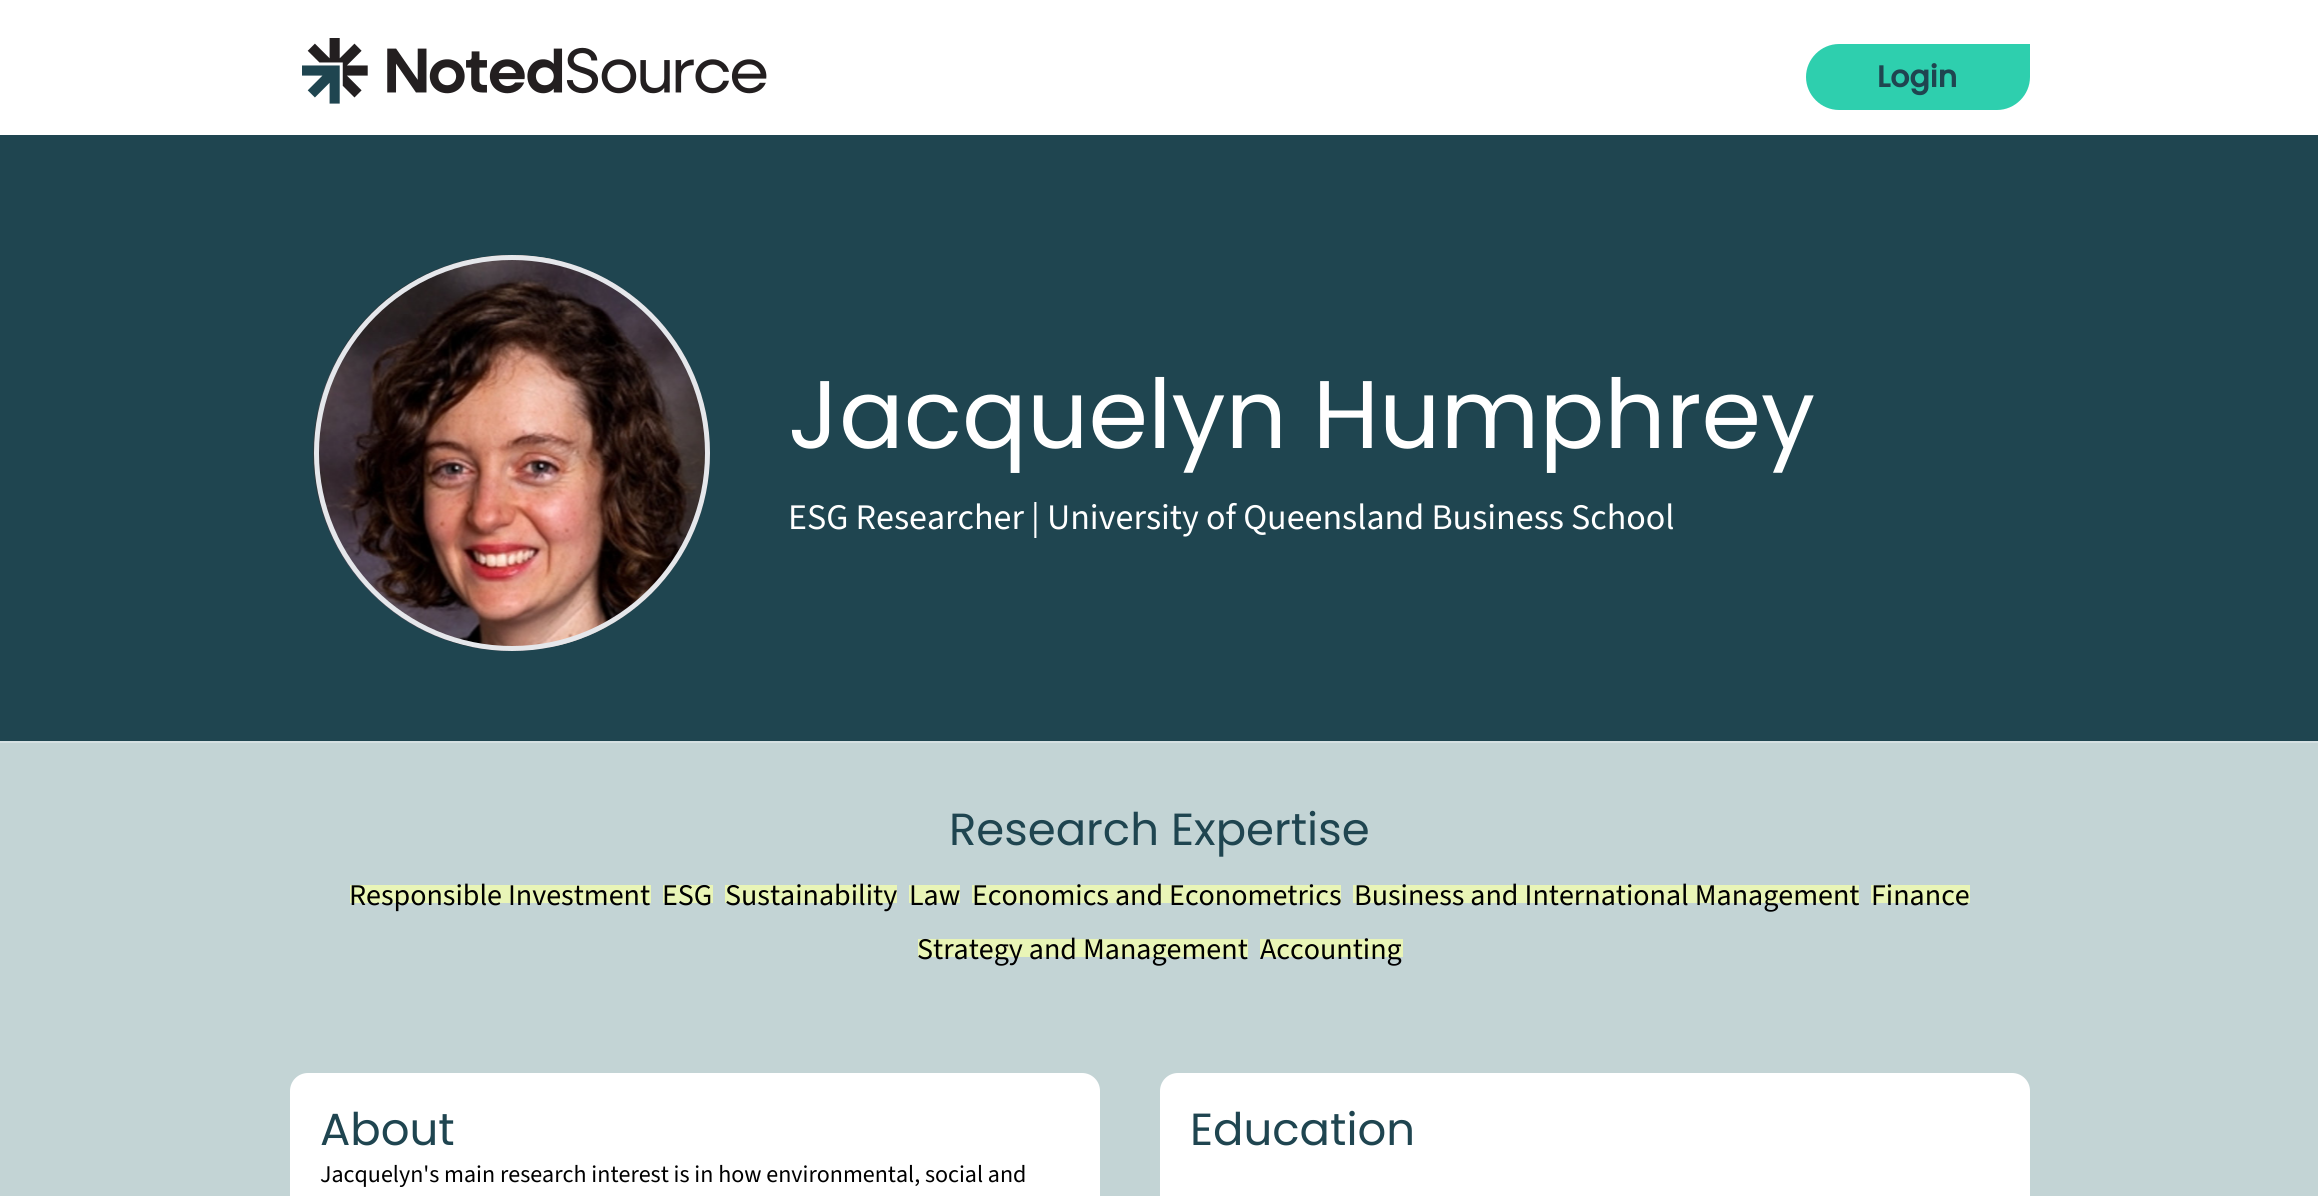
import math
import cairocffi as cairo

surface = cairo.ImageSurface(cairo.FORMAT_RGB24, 2318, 1196)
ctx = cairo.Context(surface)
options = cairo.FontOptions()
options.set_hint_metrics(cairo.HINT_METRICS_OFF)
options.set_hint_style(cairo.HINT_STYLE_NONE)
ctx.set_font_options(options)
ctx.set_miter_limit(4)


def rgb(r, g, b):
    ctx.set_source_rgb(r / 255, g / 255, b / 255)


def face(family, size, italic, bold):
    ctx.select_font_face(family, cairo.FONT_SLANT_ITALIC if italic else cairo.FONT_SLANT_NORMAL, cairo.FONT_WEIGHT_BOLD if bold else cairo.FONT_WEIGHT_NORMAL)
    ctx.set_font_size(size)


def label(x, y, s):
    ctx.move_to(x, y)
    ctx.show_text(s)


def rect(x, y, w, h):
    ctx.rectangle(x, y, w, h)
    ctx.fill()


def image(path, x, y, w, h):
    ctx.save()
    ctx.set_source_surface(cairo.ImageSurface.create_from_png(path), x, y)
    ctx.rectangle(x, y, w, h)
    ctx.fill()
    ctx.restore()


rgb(195, 212, 213)
ctx.paint()
rgb(255, 255, 255)
rect(0, 0, 2318, 135)
image('image0.png', 302, 38, 465, 66)
rgb(46, 207, 174)
ctx.new_path()
ctx.move_to(1839, 44)
ctx.line_to(2030, 44)
ctx.line_to(2030, 77)
ctx.curve_to(2030, 95, 2015, 110, 1997, 110)
ctx.line_to(1839, 110)
ctx.curve_to(1821, 110, 1806, 95, 1806, 77)
ctx.curve_to(1806, 59, 1821, 44, 1839, 44)
ctx.close_path()
ctx.fill()
face('Poppins', 30, 0, 1)
rgb(31, 69, 80)
label(1877, 87, 'Login')
rect(0, 135, 2318, 606)
rgb(213, 224, 226)
rect(0, 741, 2318, 2)
image('image1.png', 313, 255, 397, 396)
ctx.arc(512, 453, 195.5, 0, 2 * math.pi)
rgb(229, 231, 235)
ctx.set_line_width(5)
ctx.stroke()
face('Poppins', 96, 0, 0)
rgb(255, 255, 255)
label(788, 448, 'Jacquelyn Humphrey')
face('Source Sans 3', 36, 0, 0)
label(788, 529, 'ESG Researcher | University of Queensland Business School')
face('Poppins', 45, 0, 0)
rgb(31, 69, 80)
label(949, 845, 'Research Expertise')
rgb(233, 245, 183)
rect(350, 885, 301, 18)
face('Source Sans 3', 30, 0, 0)
rgb(0, 0, 0)
label(349, 905, 'Responsible Investment')
rgb(233, 245, 183)
rect(663, 885, 50, 18)
rgb(0, 0, 0)
label(662, 905, 'ESG')
rgb(233, 245, 183)
rect(725, 885, 172, 18)
rgb(0, 0, 0)
label(725, 905, 'Sustainability')
rgb(233, 245, 183)
rect(909, 885, 51, 18)
rgb(0, 0, 0)
label(909, 905, 'Law')
rgb(233, 245, 183)
rect(972, 885, 369, 18)
rgb(0, 0, 0)
label(972, 905, 'Economics and Econometrics')
rgb(233, 245, 183)
rect(1353, 885, 506, 18)
rgb(0, 0, 0)
label(1354, 905, 'Business and International Management')
rgb(233, 245, 183)
rect(1871, 885, 99, 18)
rgb(0, 0, 0)
label(1871, 905, 'Finance')
rgb(233, 245, 183)
rect(918, 939, 330, 18)
rgb(0, 0, 0)
label(917, 959, 'Strategy and Management')
rgb(233, 245, 183)
rect(1260, 939, 143, 18)
rgb(0, 0, 0)
label(1260, 959, 'Accounting')
rgb(255, 255, 255)
ctx.new_path()
ctx.move_to(308, 1073)
ctx.line_to(1082, 1073)
ctx.curve_to(1092, 1073, 1100, 1081, 1100, 1091)
ctx.line_to(1100, 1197)
ctx.line_to(290, 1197)
ctx.line_to(290, 1091)
ctx.curve_to(290, 1081, 298, 1073, 308, 1073)
ctx.close_path()
ctx.fill()
face('Poppins', 45, 0, 0)
rgb(31, 69, 80)
label(320, 1145, 'About')
face('Source Sans 3', 24, 0, 0)
rgb(0, 0, 0)
label(320, 1182, 'Jacquelyn\'s main research interest is in how environmental, social and')
rgb(255, 255, 255)
ctx.new_path()
ctx.move_to(1178, 1073)
ctx.line_to(2012, 1073)
ctx.curve_to(2022, 1073, 2030, 1081, 2030, 1091)
ctx.line_to(2030, 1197)
ctx.line_to(1160, 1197)
ctx.line_to(1160, 1091)
ctx.curve_to(1160, 1081, 1168, 1073, 1178, 1073)
ctx.close_path()
ctx.fill()
face('Poppins', 45, 0, 0)
rgb(31, 69, 80)
label(1190, 1145, 'Education')
surface.write_to_png('render.png')
